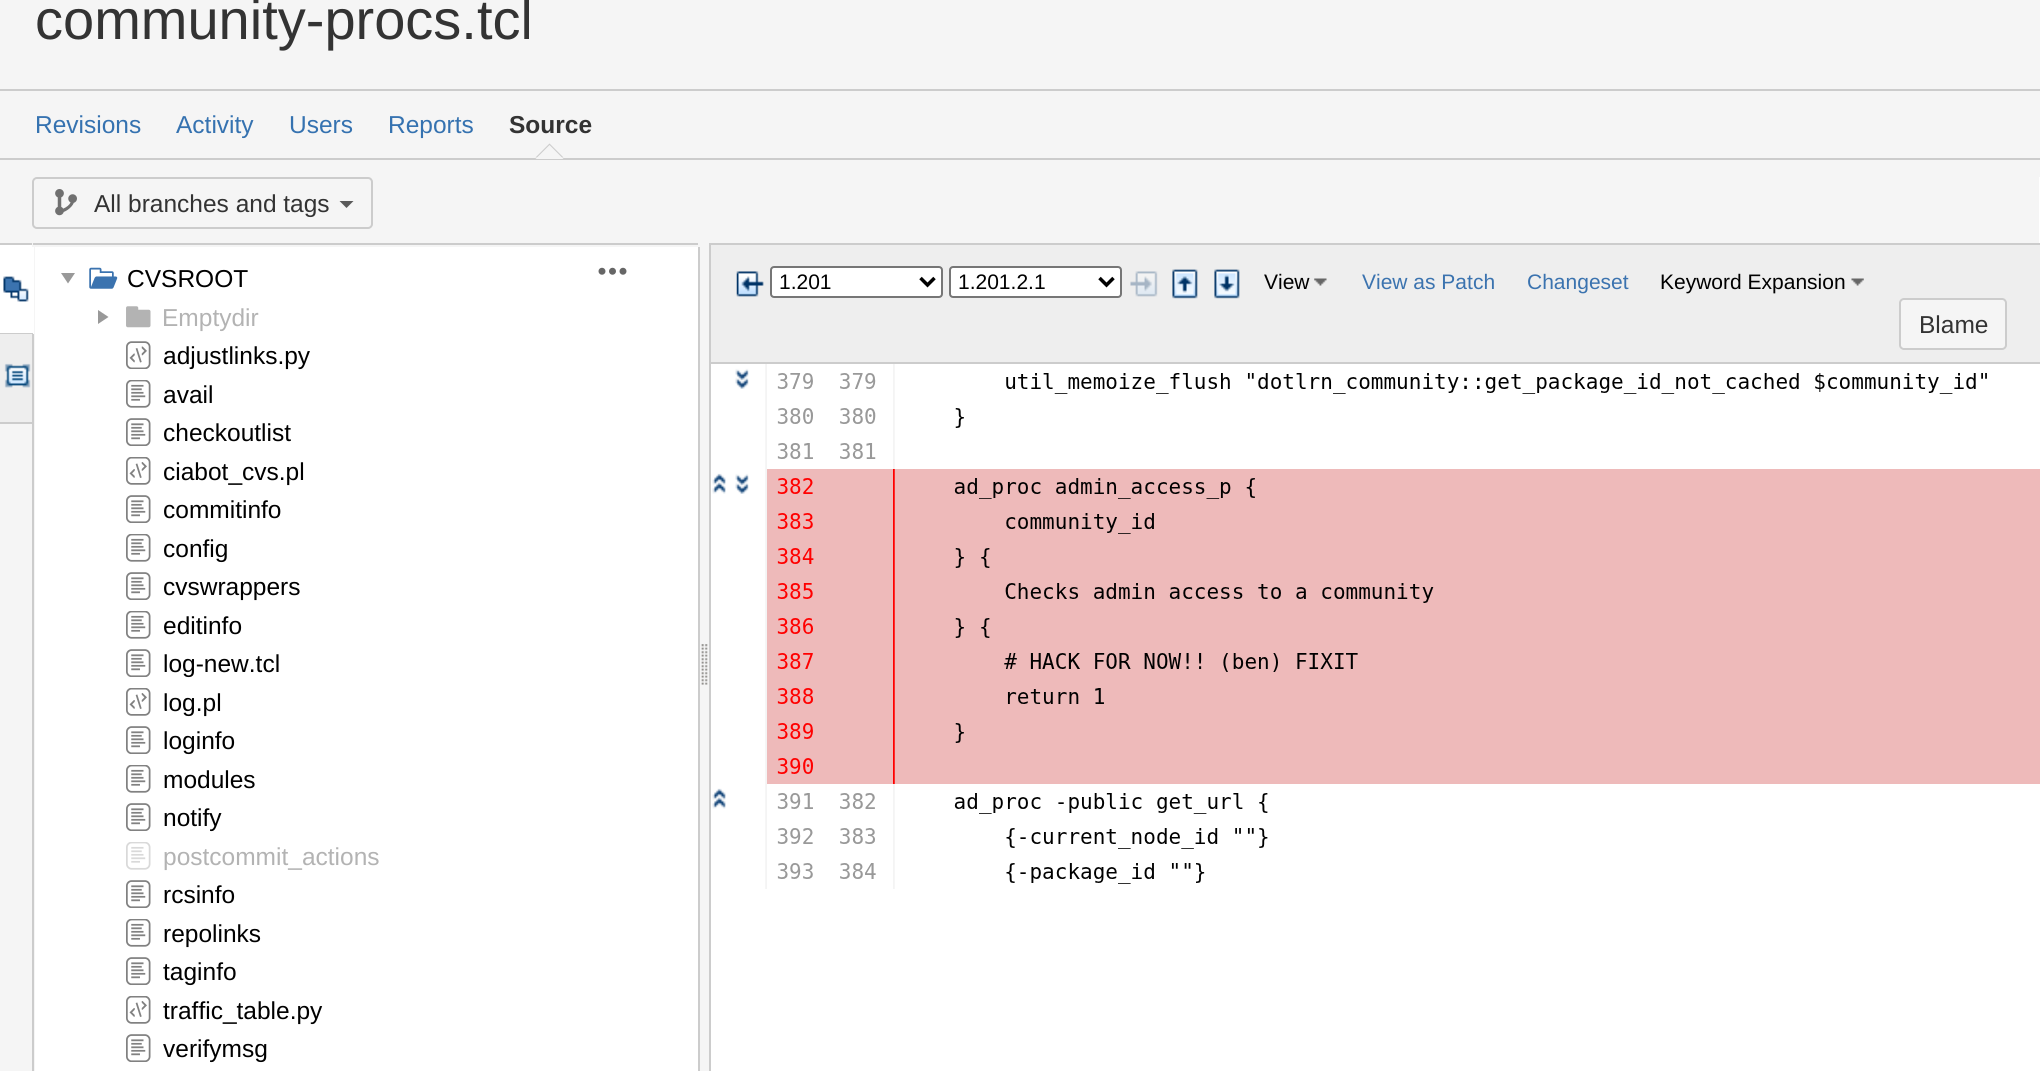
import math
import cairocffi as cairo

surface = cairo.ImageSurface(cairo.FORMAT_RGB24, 2040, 1071)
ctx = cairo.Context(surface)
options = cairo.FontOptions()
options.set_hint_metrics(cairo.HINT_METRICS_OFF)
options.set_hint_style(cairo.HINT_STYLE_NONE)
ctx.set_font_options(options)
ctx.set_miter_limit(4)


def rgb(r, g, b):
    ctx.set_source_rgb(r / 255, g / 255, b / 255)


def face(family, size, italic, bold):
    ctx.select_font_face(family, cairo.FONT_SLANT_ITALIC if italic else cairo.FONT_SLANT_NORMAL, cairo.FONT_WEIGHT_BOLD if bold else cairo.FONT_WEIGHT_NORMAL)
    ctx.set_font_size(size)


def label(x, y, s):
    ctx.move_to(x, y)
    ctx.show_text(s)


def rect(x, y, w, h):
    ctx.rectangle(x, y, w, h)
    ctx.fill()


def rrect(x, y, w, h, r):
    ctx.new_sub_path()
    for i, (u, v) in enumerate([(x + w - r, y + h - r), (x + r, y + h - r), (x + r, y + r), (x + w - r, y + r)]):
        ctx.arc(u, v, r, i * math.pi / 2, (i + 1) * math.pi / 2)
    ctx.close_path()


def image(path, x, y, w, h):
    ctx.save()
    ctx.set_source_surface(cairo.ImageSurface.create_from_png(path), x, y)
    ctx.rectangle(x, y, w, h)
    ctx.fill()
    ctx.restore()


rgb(245, 245, 245)
ctx.paint()
face('Liberation Sans', 56, 0, 0)
rgb(51, 51, 51)
label(35, 39, 'community-procs.tcl')
rgb(204, 204, 204)
rect(0, 89, 2040, 2)
rect(0, 158, 2040, 2)
face('Liberation Sans', 24.5, 0, 0)
rgb(53, 114, 176)
label(35, 133, 'Revisions')
label(176, 133, 'Activity')
label(289, 133, 'Users')
label(388, 133, 'Reports')
face('Liberation Sans', 24.5, 0, 1)
rgb(51, 51, 51)
label(509, 133, 'Source')
rgb(204, 204, 204)
ctx.new_path()
ctx.move_to(563.5, 157.5)
ctx.line_to(535.5, 157.5)
ctx.line_to(549.5, 143.5)
ctx.close_path()
ctx.fill()
rgb(245, 245, 245)
ctx.new_path()
ctx.move_to(563.5, 159)
ctx.line_to(535.5, 159)
ctx.line_to(549.5, 145)
ctx.close_path()
ctx.fill()
rgb(204, 204, 204)
rect(0, 243, 32, 2)
rgb(255, 255, 255)
rect(0, 245, 32, 88)
image('image0.png', 3, 276, 26, 26)
rect(32, 245, 2, 89)
rgb(204, 204, 204)
rect(32, 334, 2, 737)
rect(0, 333, 33, 2)
rgb(238, 238, 238)
rect(0, 334, 32, 88)
image('image1.png', 4, 363, 27, 25)
rgb(204, 204, 204)
rect(0, 422, 32, 2)
rgb(255, 255, 255)
rect(35, 247, 663, 824)
rgb(204, 204, 204)
rect(698, 247, 2, 824)
rgb(245, 245, 245)
rect(32, 245, 2, 2)
rrect(33, 178, 339, 50, 4)
rgb(204, 204, 204)
ctx.stroke()
image('image2.png', 55, 189, 22, 27)
face('Liberation Sans', 24.5, 0, 0)
rgb(51, 51, 51)
label(94, 212, 'All branches and tags')
rgb(90, 90, 90)
ctx.new_path()
ctx.move_to(339.5, 201)
ctx.line_to(353.5, 201)
ctx.line_to(346.5, 208)
ctx.close_path()
ctx.fill()
rgb(204, 204, 204)
rect(33, 243, 665, 2)
rgb(153, 153, 153)
ctx.new_path()
ctx.move_to(61, 273)
ctx.line_to(75, 273)
ctx.line_to(68, 283.5)
ctx.close_path()
ctx.fill()
image('image3.png', 89, 267, 29, 22)
rgb(0, 0, 0)
label(127, 287, 'CVSROOT')
rgb(153, 153, 153)
ctx.new_path()
ctx.move_to(98, 324)
ctx.line_to(98, 310)
ctx.line_to(108.5, 317)
ctx.close_path()
ctx.fill()
image('image4.png', 126, 306, 25, 22)
rgb(179, 179, 179)
label(162, 326, 'Emptydir')
image('image5.png', 126, 341, 25, 28)
rgb(0, 0, 0)
label(163, 364, 'adjustlinks.py')
image('image6.png', 126, 380, 25, 28)
label(163, 403, 'avail')
image('image7.png', 126, 418, 25, 28)
label(163, 441, 'checkoutlist')
image('image8.png', 126, 457, 25, 28)
label(163, 480, 'ciabot_cvs.pl')
image('image7.png', 126, 495, 25, 28)
label(163, 518, 'commitinfo')
image('image6.png', 126, 534, 25, 28)
label(163, 557, 'config')
image('image7.png', 126, 572, 25, 28)
label(163, 595, 'cvswrappers')
image('image6.png', 126, 611, 25, 28)
label(163, 634, 'editinfo')
image('image7.png', 126, 649, 25, 28)
label(163, 672, 'log-new.tcl')
image('image8.png', 126, 688, 25, 28)
label(163, 711, 'log.pl')
image('image7.png', 126, 726, 25, 28)
label(163, 749, 'loginfo')
image('image6.png', 126, 765, 25, 28)
label(163, 788, 'modules')
image('image7.png', 126, 803, 25, 28)
label(163, 826, 'notify')
image('image9.png', 126, 842, 25, 28)
rgb(179, 179, 179)
label(163, 865, 'postcommit_actions')
image('image7.png', 126, 880, 25, 28)
rgb(0, 0, 0)
label(163, 903, 'rcsinfo')
image('image6.png', 126, 919, 25, 28)
label(163, 942, 'repolinks')
image('image7.png', 126, 957, 25, 28)
label(163, 980, 'taginfo')
image('image8.png', 126, 996, 25, 28)
label(163, 1019, 'traffic_table.py')
image('image7.png', 126, 1034, 25, 28)
label(163, 1057, 'verifymsg')
image('image10.png', 598, 267, 29, 8)
image('image11.png', 701, 644, 7, 41)
rgb(255, 255, 255)
rect(711, 177, 1329, 894)
rgb(204, 204, 204)
rect(709, 243, 2, 828)
rgb(245, 245, 245)
rect(711, 177, 1328, 66)
rgb(238, 238, 238)
rect(711, 245, 1329, 117)
rgb(204, 204, 204)
rect(711, 243, 1329, 2)
rect(711, 362, 1329, 2)
image('image12.png', 736, 271, 28, 26)
rgb(255, 255, 255)
rrect(771, 267, 171, 30, 3)
ctx.fill_preserve()
rgb(118, 118, 118)
ctx.stroke()
ctx.new_path()
ctx.move_to(920.5, 278)
ctx.line_to(927.5, 285)
ctx.line_to(934.5, 278)
rgb(0, 0, 0)
ctx.set_line_width(3.5)
ctx.stroke()
face('Liberation Sans', 21, 0, 0)
label(779, 289, '1.201')
rgb(255, 255, 255)
rrect(950, 267, 171, 30, 3)
ctx.fill_preserve()
rgb(118, 118, 118)
ctx.set_line_width(2)
ctx.stroke()
ctx.new_path()
ctx.move_to(1099.5, 278)
ctx.line_to(1106.5, 285)
ctx.line_to(1113.5, 278)
rgb(0, 0, 0)
ctx.set_line_width(3.5)
ctx.stroke()
label(958, 289, '1.201.2.1')
image('image13.png', 1130, 271, 28, 26)
image('image14.png', 1172, 269, 26, 30)
image('image15.png', 1214, 269, 26, 30)
label(1264, 289, 'View')
image('image16.png', 1314, 278, 13, 8)
rgb(59, 115, 175)
label(1362, 289, 'View as Patch')
label(1527, 289, 'Changeset')
rgb(0, 0, 0)
label(1660, 289, 'Keyword Expansion')
image('image17.png', 1851, 278, 13, 8)
rgb(245, 245, 245)
rrect(1900, 299, 106, 50, 4)
ctx.fill_preserve()
rgb(204, 204, 204)
ctx.set_line_width(2)
ctx.stroke()
face('Liberation Sans', 24.5, 0, 0)
rgb(51, 51, 51)
label(1919, 333, 'Blame')
image('image18.png', 712, 364, 1328, 525)
surface.write_to_png('render.png')
